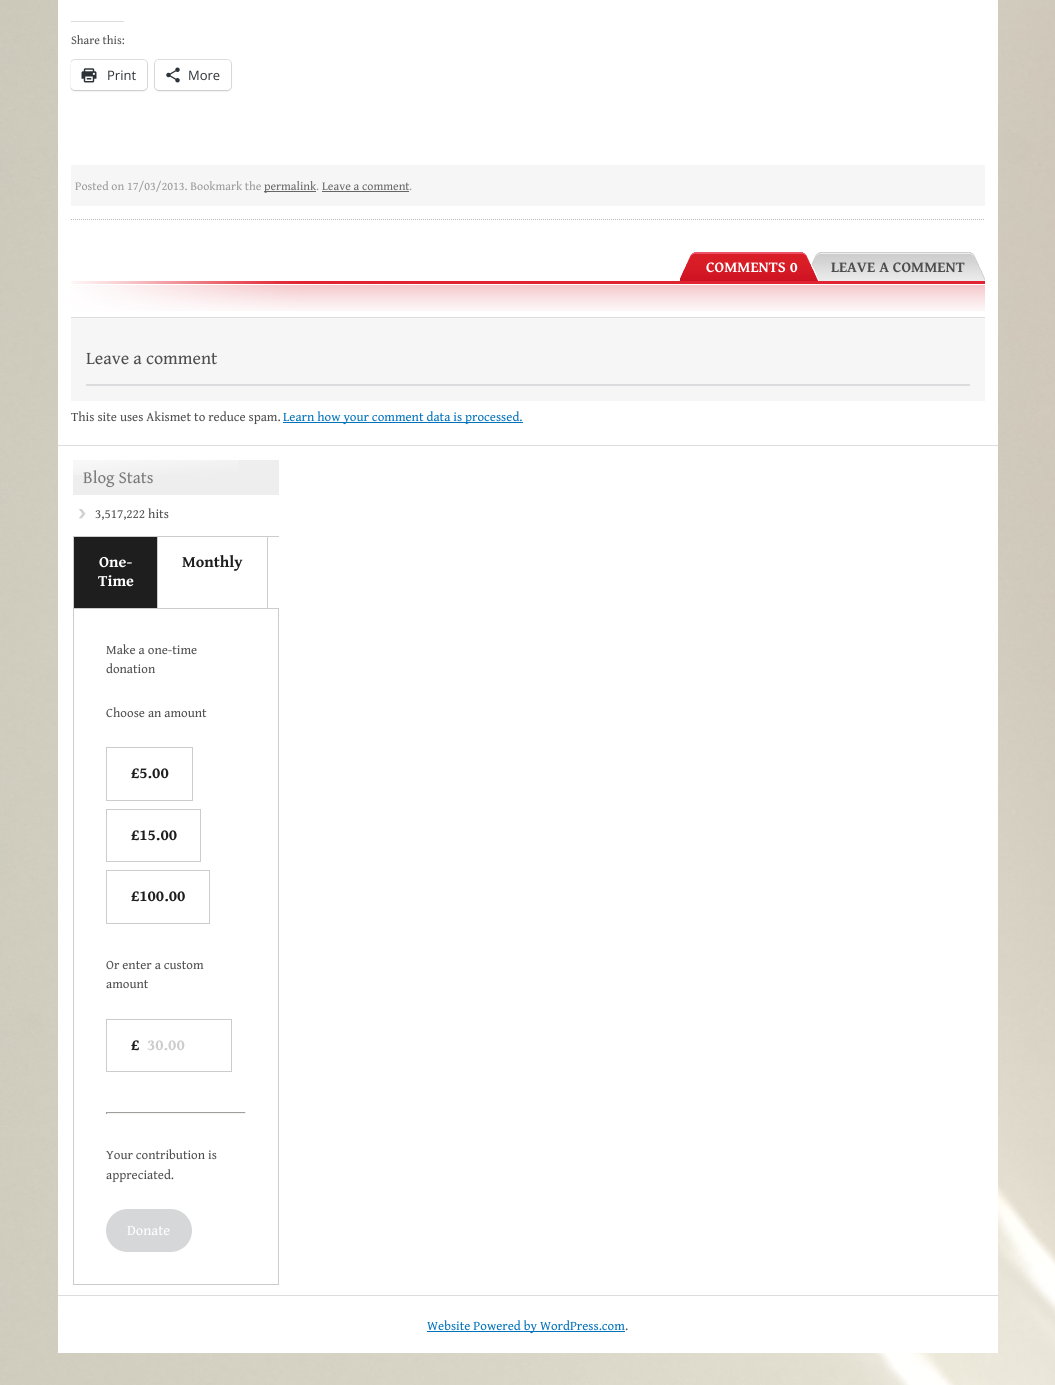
import math
import cairocffi as cairo

surface = cairo.ImageSurface(cairo.FORMAT_RGB24, 1055, 1385)
ctx = cairo.Context(surface)
options = cairo.FontOptions()
options.set_hint_metrics(cairo.HINT_METRICS_OFF)
options.set_hint_style(cairo.HINT_STYLE_NONE)
ctx.set_font_options(options)
ctx.set_miter_limit(4)


def rgb(r, g, b):
    ctx.set_source_rgb(r / 255, g / 255, b / 255)


def face(family, size, italic, bold):
    ctx.select_font_face(family, cairo.FONT_SLANT_ITALIC if italic else cairo.FONT_SLANT_NORMAL, cairo.FONT_WEIGHT_BOLD if bold else cairo.FONT_WEIGHT_NORMAL)
    ctx.set_font_size(size)


def label(x, y, s):
    ctx.move_to(x, y)
    ctx.show_text(s)


def rect(x, y, w, h):
    ctx.rectangle(x, y, w, h)
    ctx.fill()


def rrect(x, y, w, h, r):
    ctx.new_sub_path()
    for i, (u, v) in enumerate([(x + w - r, y + h - r), (x + r, y + h - r), (x + r, y + r), (x + w - r, y + r)]):
        ctx.arc(u, v, r, i * math.pi / 2, (i + 1) * math.pi / 2)
    ctx.close_path()


def soft_shadow(x, y, w, h, r, blur, alpha):
    ctx.push_group_with_content(cairo.CONTENT_ALPHA)
    ctx.set_operator(cairo.OPERATOR_SOURCE)
    for i in range(15, -16, -2):
        e = blur * i / 6
        if min(w, h) + 2 * e > 0:
            ctx.set_source_rgba(0, 0, 0, alpha * math.erfc((i - 1) / 8.5) / 2)
            rrect(x - e, y - e, w + 2 * e, h + 2 * e, max(0, min(r + e + blur * .6, min(w, h) / 2 + e)))
            ctx.fill()
    ctx.mask(ctx.pop_group())


def image(path, x, y, w, h):
    ctx.save()
    ctx.set_source_surface(cairo.ImageSurface.create_from_png(path), x, y)
    ctx.rectangle(x, y, w, h)
    ctx.fill()
    ctx.restore()


rgb(255, 255, 255)
ctx.paint()
image('image0.png', 0, 0, 1055, 1385)
rgb(255, 255, 255)
rect(58, 0, 940, 445)
image('image1.png', 71, 219, 913, 1)
rgb(220, 220, 222)
rect(71, 21, 53, 1)
face('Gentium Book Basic', 12, 0, 0)
rgb(78, 78, 78)
label(71, 44, 'Share this:')
ctx.save()
ctx.rectangle(71, 0, 914, 165)
ctx.clip()
rrect(70.5, 59.5, 77, 31, 4.5)
rgb(224, 224, 224)
ctx.set_line_width(1)
ctx.stroke()
ctx.restore()
rgb(0, 0, 0)
soft_shadow(71, 61, 76, 30, 4, 1, 0.12)
rgb(255, 255, 255)
rrect(71, 60, 76, 30, 4)
ctx.fill()
image('image2.png', 81, 68, 16, 15)
face('Open Sans', 13, 0, 0)
rgb(44, 51, 56)
label(107, 80, 'Print')
rrect(154.5, 59.5, 77, 31, 4.5)
rgb(224, 224, 224)
ctx.set_line_width(1)
ctx.stroke()
rgb(0, 0, 0)
soft_shadow(155, 61, 76, 30, 4, 1, 0.12)
rgb(255, 255, 255)
rrect(155, 60, 76, 30, 4)
ctx.fill()
image('image3.png', 166, 67, 14, 16)
rgb(44, 51, 56)
label(188, 80, 'More')
rgb(246, 246, 246)
rect(71, 165, 914, 41)
face('Gentium Book Basic', 12, 0, 0)
rgb(153, 153, 153)
label(75, 190, 'Posted on 17/03/2013. Bookmark the')
rgb(102, 102, 102)
rect(264, 191, 52, 1)
label(264, 190, 'permalink')
rgb(153, 153, 153)
label(316, 190, '.')
rgb(102, 102, 102)
label(322, 190, 'Leave a comment')
rect(322, 191, 87, 1)
rgb(153, 153, 153)
label(409, 190, '.')
image('image4.png', 71, 281, 914, 30)
image('image8.png', 811, 252, 158, 29)
image('image5.png', 801, 252, 18, 29)
image('image6.png', 680, 252, 121, 29)
face('Gentium Book Basic', 15.25, 0, 1)
rgb(255, 255, 255)
label(706, 272, 'COMMENTS 0')
image('image7.png', 969, 252, 16, 29)
rgb(78, 78, 78)
label(831, 272, 'LEAVE A COMMENT')
rgb(246, 246, 246)
rect(71, 318, 914, 83)
rgb(221, 221, 221)
rect(71, 317, 914, 1)
face('Gentium Book Basic', 18, 0, 0)
rgb(78, 78, 78)
label(86, 364, 'Leave a comment')
rgb(220, 220, 222)
rect(86, 384, 884, 2)
face('Gentium Book Basic', 13, 0, 0)
rgb(78, 78, 78)
label(71, 421, 'This site uses Akismet to reduce spam.')
rgb(0, 113, 187)
rect(283, 422, 240, 1)
label(283, 421, 'Learn how your comment data is processed.')
rgb(255, 255, 255)
rect(58, 446, 940, 907)
rgb(221, 221, 221)
rect(58, 445, 940, 1)
rgb(238, 238, 238)
rect(73, 460, 206, 35)
image('image9.png', 73, 460, 166, 15)
face('Gentium Book Basic', 17, 0, 0)
rgb(121, 121, 121)
label(83, 483, 'Blog Stats')
image('image10.png', 79, 509, 7, 10)
face('Gentium Book Basic', 13, 0, 0)
rgb(78, 78, 78)
label(95, 518, '3,517,222 hits')
ctx.rectangle(73.5, 536.5, 205, 748)
rgb(204, 204, 204)
ctx.stroke()
rect(74, 608, 204, 1)
rgb(30, 30, 30)
rect(74, 537, 83, 71)
face('Gentium Book Basic', 16, 0, 1)
rgb(255, 255, 255)
label(99, 567, 'One-')
label(98, 586, 'Time')
rgb(204, 204, 204)
rect(157, 537, 1, 71)
rgb(30, 30, 30)
label(182, 567, 'Monthly')
rgb(255, 255, 255)
rect(278, 537, 1, 71)
rgb(204, 204, 204)
rect(267, 537, 1, 71)
face('Gentium Book Basic', 13, 0, 0)
rgb(78, 78, 78)
label(106, 654, 'Make a one-time')
label(106, 673, 'donation')
label(106, 717, 'Choose an amount')
ctx.rectangle(106.5, 747.5, 86, 53)
rgb(204, 204, 204)
ctx.stroke()
face('Gentium Book Basic', 16, 0, 1)
rgb(30, 30, 30)
label(131, 778, '£5.00')
ctx.rectangle(106.5, 809.5, 94, 52)
rgb(204, 204, 204)
ctx.stroke()
rgb(30, 30, 30)
label(131, 840, '£15.00')
ctx.rectangle(106.5, 870.5, 103, 53)
rgb(204, 204, 204)
ctx.stroke()
rgb(30, 30, 30)
label(131, 901, '£100.00')
face('Gentium Book Basic', 13, 0, 0)
rgb(78, 78, 78)
label(106, 969, 'Or enter a custom')
label(106, 988, 'amount')
ctx.rectangle(106.5, 1019.5, 125, 52)
rgb(204, 204, 204)
ctx.stroke()
face('Gentium Book Basic', 16, 0, 1)
rgb(30, 30, 30)
label(131, 1050, '£')
rgb(204, 204, 204)
label(147, 1050, '30.00')
rgb(159, 159, 159)
rect(106, 1112, 140, 1)
rgb(238, 238, 238)
rect(245, 1112, 1, 2)
rgb(246, 244, 235)
rect(106, 1113, 140, 1)
rgb(159, 159, 159)
rect(106, 1112, 1, 2)
face('Gentium Book Basic', 13, 0, 0)
rgb(78, 78, 78)
label(106, 1159, 'Your contribution is')
label(106, 1179, 'appreciated.')
rgb(214, 215, 216)
rrect(106, 1209, 86, 43, 21.5)
ctx.fill()
face('Gentium Book Basic', 14.5, 0, 0)
rgb(255, 255, 255)
label(127, 1235, 'Donate')
rgb(221, 221, 221)
rect(58, 1295, 940, 1)
rgb(0, 113, 187)
rect(427, 1331, 198, 1)
face('Gentium Book Basic', 13, 0, 0)
label(427, 1330, 'Website Powered by WordPress.com')
rgb(78, 78, 78)
label(625, 1330, '.')
surface.write_to_png('render.png')
